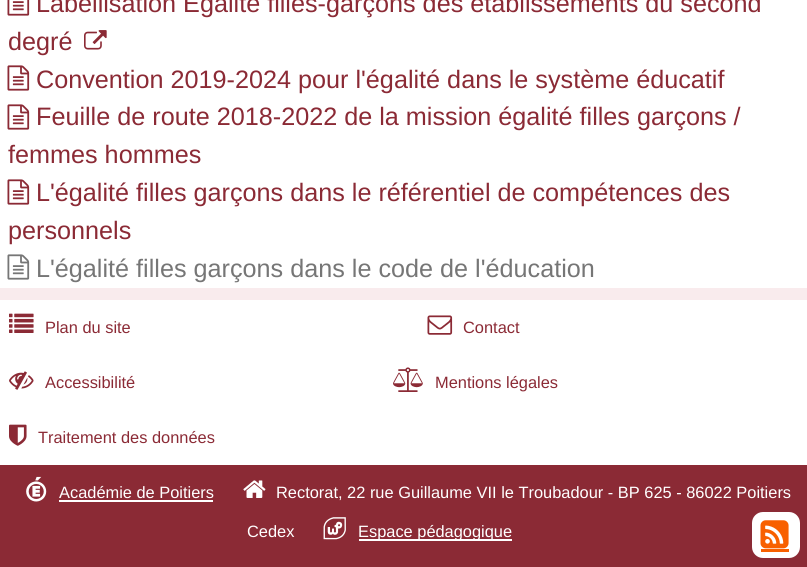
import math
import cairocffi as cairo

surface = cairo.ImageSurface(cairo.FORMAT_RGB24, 807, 567)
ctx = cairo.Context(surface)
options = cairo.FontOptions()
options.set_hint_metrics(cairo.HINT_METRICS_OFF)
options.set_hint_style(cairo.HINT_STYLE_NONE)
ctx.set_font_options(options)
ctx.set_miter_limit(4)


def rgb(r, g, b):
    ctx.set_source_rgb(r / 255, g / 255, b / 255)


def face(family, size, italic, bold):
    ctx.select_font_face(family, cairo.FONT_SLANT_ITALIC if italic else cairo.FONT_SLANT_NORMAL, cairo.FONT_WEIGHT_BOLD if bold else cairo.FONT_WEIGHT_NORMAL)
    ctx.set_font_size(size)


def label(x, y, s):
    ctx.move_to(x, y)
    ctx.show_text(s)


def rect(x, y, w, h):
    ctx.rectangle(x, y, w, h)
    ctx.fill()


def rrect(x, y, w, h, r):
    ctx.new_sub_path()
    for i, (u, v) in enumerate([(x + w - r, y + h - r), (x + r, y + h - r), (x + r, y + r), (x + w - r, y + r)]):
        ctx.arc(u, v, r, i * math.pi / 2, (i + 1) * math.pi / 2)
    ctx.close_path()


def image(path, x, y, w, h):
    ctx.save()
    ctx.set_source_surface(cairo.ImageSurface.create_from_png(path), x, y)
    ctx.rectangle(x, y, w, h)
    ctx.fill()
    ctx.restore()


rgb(249, 235, 237)
ctx.paint()
rgb(255, 255, 255)
rect(0, 0, 807, 288)
image('image0.png', 7, 0, 23, 16)
face('Liberation Sans', 25.2, 0, 0)
rgb(139, 42, 53)
label(36, 12, 'Labellisation Égalité filles-garçons des établissements du second')
label(8, 50, 'degré')
image('image1.png', 84, 30, 23, 20)
image('image2.png', 7, 65, 23, 26)
label(36, 88, 'Convention 2019-2024 pour l\'égalité dans le système éducatif')
image('image2.png', 7, 104, 23, 26)
label(36, 125, 'Feuille de route 2018-2022 de la mission égalité filles garçons /')
label(8, 163, 'femmes hommes')
image('image2.png', 7, 179, 23, 26)
label(36, 201, 'L\'égalité filles garçons dans le référentiel de compétences des')
label(8, 239, 'personnels')
image('image3.png', 7, 254, 23, 26)
rgb(118, 118, 118)
label(36, 277, 'L\'égalité filles garçons dans le code de l\'éducation')
rgb(255, 255, 255)
rect(0, 300, 807, 165)
image('image4.png', 9, 313, 25, 20)
face('Liberation Sans', 16.4, 0, 0)
rgb(139, 42, 53)
label(45, 333, 'Plan du site')
image('image5.png', 427, 315, 26, 20)
label(463, 333, 'Contact')
image('image6.png', 9, 371, 25, 19)
label(45, 388, 'Accessibilité')
image('image7.png', 393, 367, 30, 25)
label(435, 388, 'Mentions légales')
image('image8.png', 9, 424, 18, 22)
label(38, 443, 'Traitement des données')
rect(0, 465, 807, 102)
image('image9.png', 26, 476, 21, 26)
rgb(255, 255, 255)
label(59, 498, 'Académie de Poitiers')
rect(59, 500, 154, 2)
image('image10.png', 243, 480, 23, 18)
label(276, 498, 'Rectorat, 22 rue Guillaume VII le Troubadour - BP 625 - 86022 Poitiers')
label(247, 537, 'Cedex')
image('image11.png', 323, 517, 23, 23)
rect(359, 539, 153, 2)
label(358, 537, 'Espace pédagogique')
rrect(752, 512, 48, 46, 11)
ctx.fill()
image('image12.png', 760, 520, 29, 29)
rgb(248, 96, 0)
rect(761, 549, 28, 3)
surface.write_to_png('render.png')
